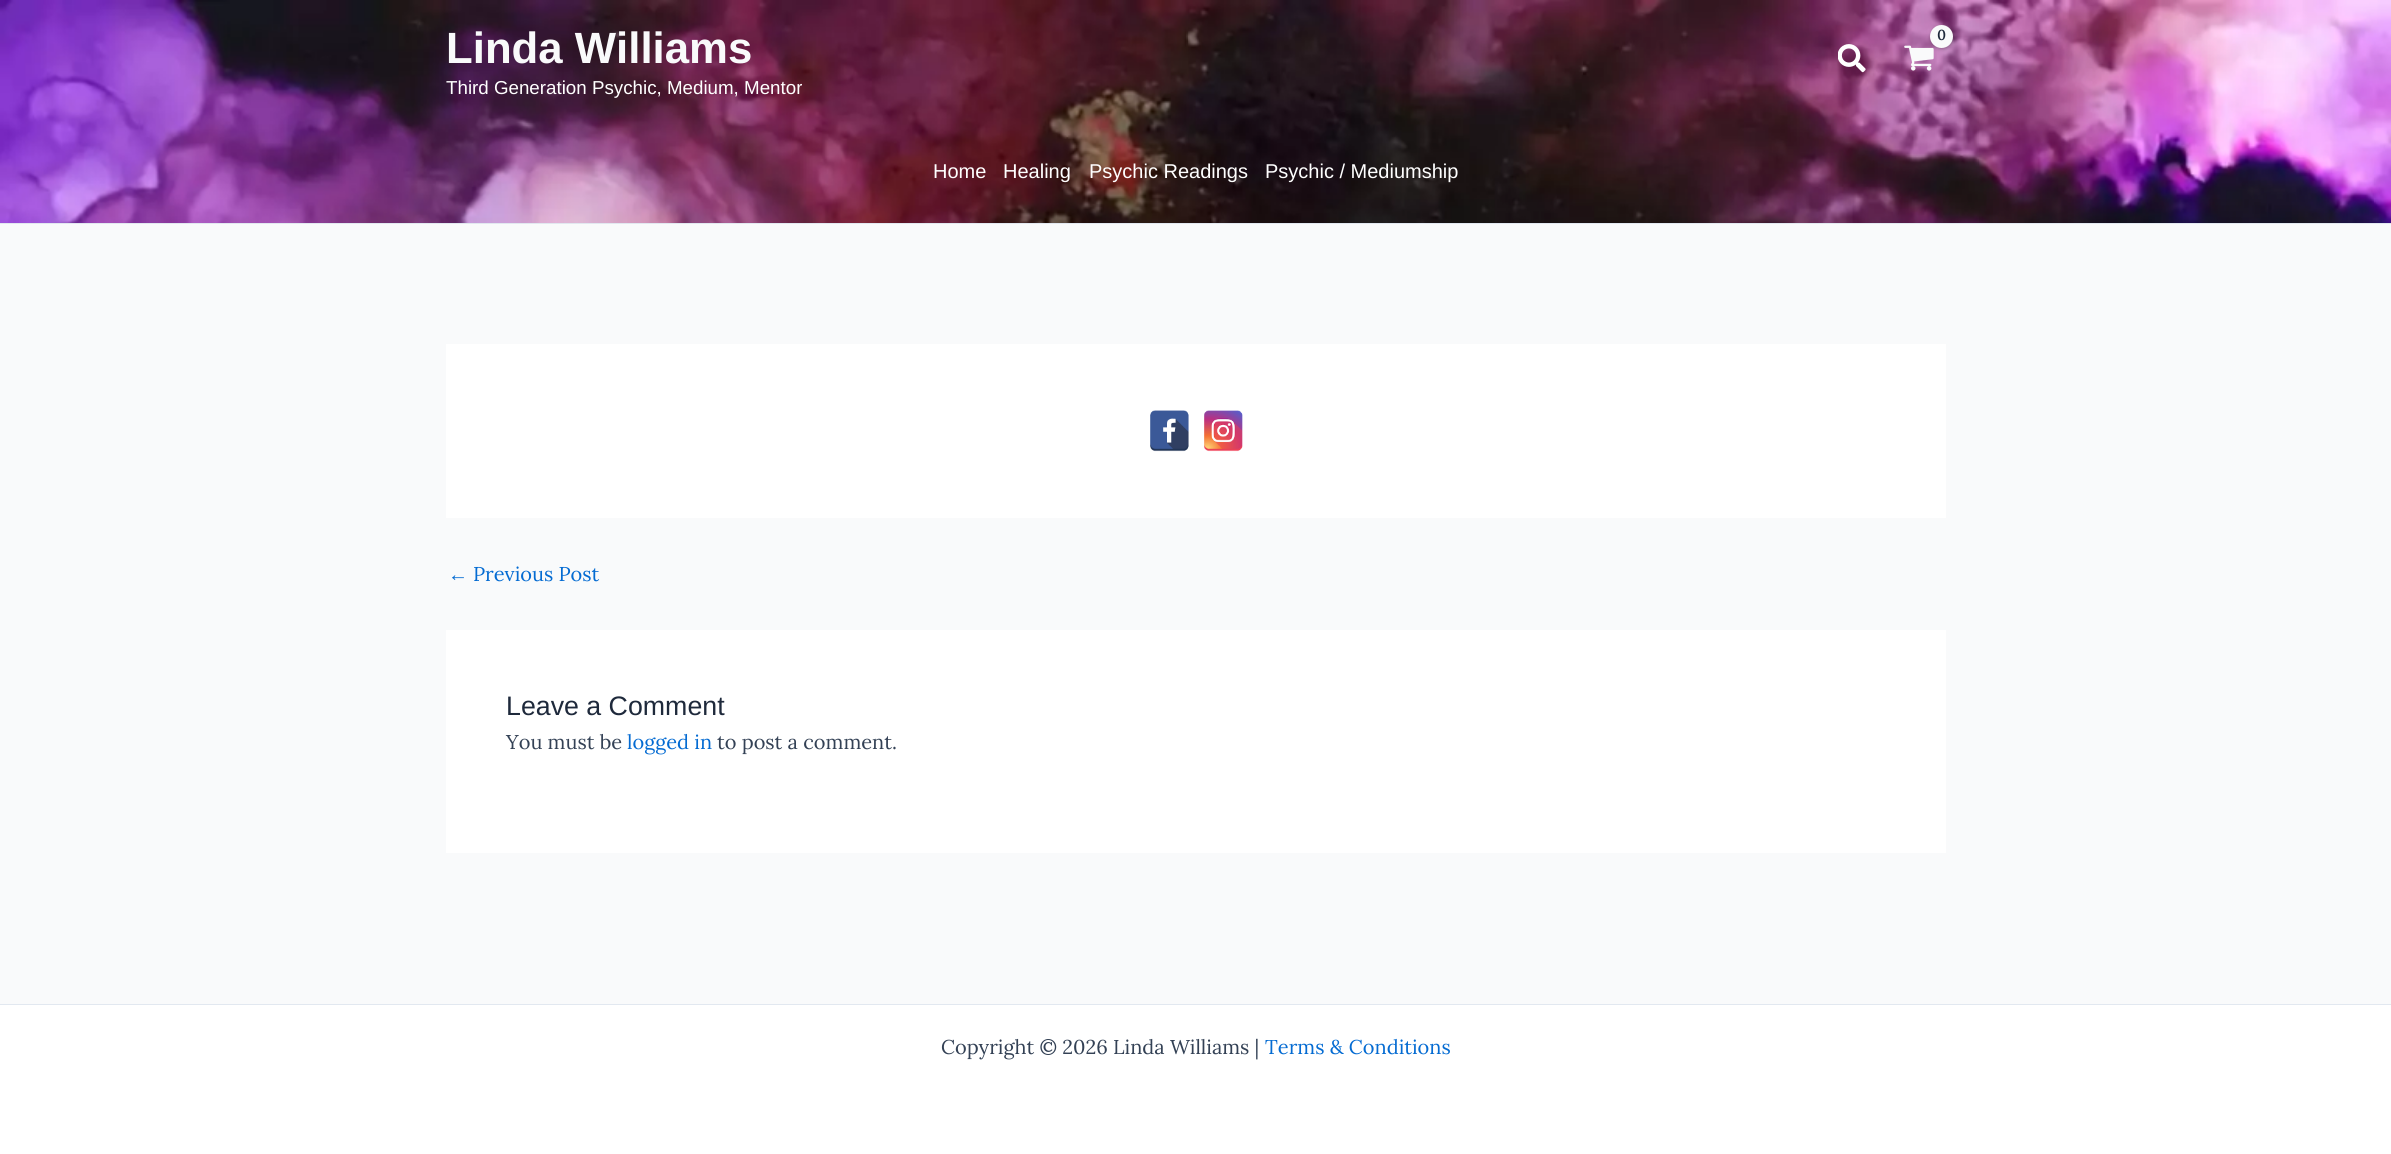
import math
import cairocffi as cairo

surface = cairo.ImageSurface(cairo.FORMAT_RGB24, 2391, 1154)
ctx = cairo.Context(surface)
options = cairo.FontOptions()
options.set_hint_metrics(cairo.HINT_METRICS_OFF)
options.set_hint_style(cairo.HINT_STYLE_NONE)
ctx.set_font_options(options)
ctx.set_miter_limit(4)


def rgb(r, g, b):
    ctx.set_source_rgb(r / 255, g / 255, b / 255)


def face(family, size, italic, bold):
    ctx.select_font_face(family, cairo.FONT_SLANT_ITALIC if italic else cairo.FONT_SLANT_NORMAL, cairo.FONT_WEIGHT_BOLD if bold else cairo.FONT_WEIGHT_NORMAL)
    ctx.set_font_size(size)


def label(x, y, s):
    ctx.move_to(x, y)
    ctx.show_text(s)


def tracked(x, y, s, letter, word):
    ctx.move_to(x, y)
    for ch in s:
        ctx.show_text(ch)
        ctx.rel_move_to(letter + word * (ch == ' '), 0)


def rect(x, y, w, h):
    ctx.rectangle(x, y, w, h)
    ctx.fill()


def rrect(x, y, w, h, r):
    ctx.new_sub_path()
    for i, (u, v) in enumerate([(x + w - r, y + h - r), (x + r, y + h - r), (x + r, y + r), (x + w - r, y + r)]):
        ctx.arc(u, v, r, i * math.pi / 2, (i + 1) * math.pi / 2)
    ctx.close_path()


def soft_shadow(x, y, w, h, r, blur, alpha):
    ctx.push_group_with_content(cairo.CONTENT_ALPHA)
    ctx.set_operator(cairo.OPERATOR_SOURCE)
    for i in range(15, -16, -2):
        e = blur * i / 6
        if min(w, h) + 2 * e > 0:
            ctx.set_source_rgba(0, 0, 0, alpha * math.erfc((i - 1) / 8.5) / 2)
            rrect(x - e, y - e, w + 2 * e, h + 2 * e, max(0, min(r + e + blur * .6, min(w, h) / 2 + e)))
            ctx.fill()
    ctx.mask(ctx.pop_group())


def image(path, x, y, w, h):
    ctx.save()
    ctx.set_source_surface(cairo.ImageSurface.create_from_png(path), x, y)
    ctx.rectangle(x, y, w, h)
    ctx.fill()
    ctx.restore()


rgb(249, 250, 251)
ctx.paint()
image('image0.png', 0, 0, 2391, 223)
face('Liberation Sans', 43.75, 0, 1)
rgb(249, 250, 251)
label(446, 63, 'Linda Williams')
face('Liberation Sans', 18.75, 0, 0)
rgb(255, 255, 255)
label(446, 94, 'Third Generation Psychic, Medium, Mentor')
image('image1.png', 1904, 45, 30, 26)
rgb(0, 0, 0)
soft_shadow(1931, 26, 23, 23, 11.5, 2, 0.3)
rgb(249, 250, 251)
ctx.arc(1941.5, 36.5, 11.5, 0, 2 * math.pi)
ctx.fill()
face('Lora', 14, 0, 1)
rgb(30, 41, 59)
tracked(1937, 40, '0', -1, 0)
image('image2.png', 1838, 44, 28, 29)
rgb(226, 232, 240)
rect(0, 223, 2391, 1)
face('Liberation Sans', 20, 0, 0)
rgb(255, 255, 255)
label(933, 178, 'Home')
label(1003, 178, 'Healing')
label(1089, 178, 'Psychic Readings')
label(1265, 178, 'Psychic / Mediumship')
rect(446, 344, 1500, 174)
image('image3.png', 1150, 410, 39, 42)
image('image4.png', 1204, 410, 39, 42)
face('Liberation Serif', 20, 0, 0)
rgb(4, 107, 210)
label(448, 581, '←')
face('Lora', 20, 0, 0)
label(473, 581, 'Previous Post')
rgb(255, 255, 255)
rect(446, 630, 1500, 223)
face('Liberation Sans', 26.75, 0, 0)
rgb(30, 41, 59)
label(506, 715, 'Leave a Comment')
face('Lora', 20, 0, 0)
rgb(51, 65, 85)
label(506, 749, 'You must be')
rgb(4, 107, 210)
label(627, 749, 'logged in')
rgb(51, 65, 85)
label(717, 749, 'to post a comment.')
rgb(255, 255, 255)
rect(0, 1005, 2391, 149)
rgb(226, 232, 240)
rect(0, 1004, 2391, 1)
rgb(51, 65, 85)
label(941, 1054, 'Copyright © 2026 Linda Williams |')
rgb(4, 107, 210)
label(1265, 1054, 'Terms & Conditions')
surface.write_to_png('render.png')
